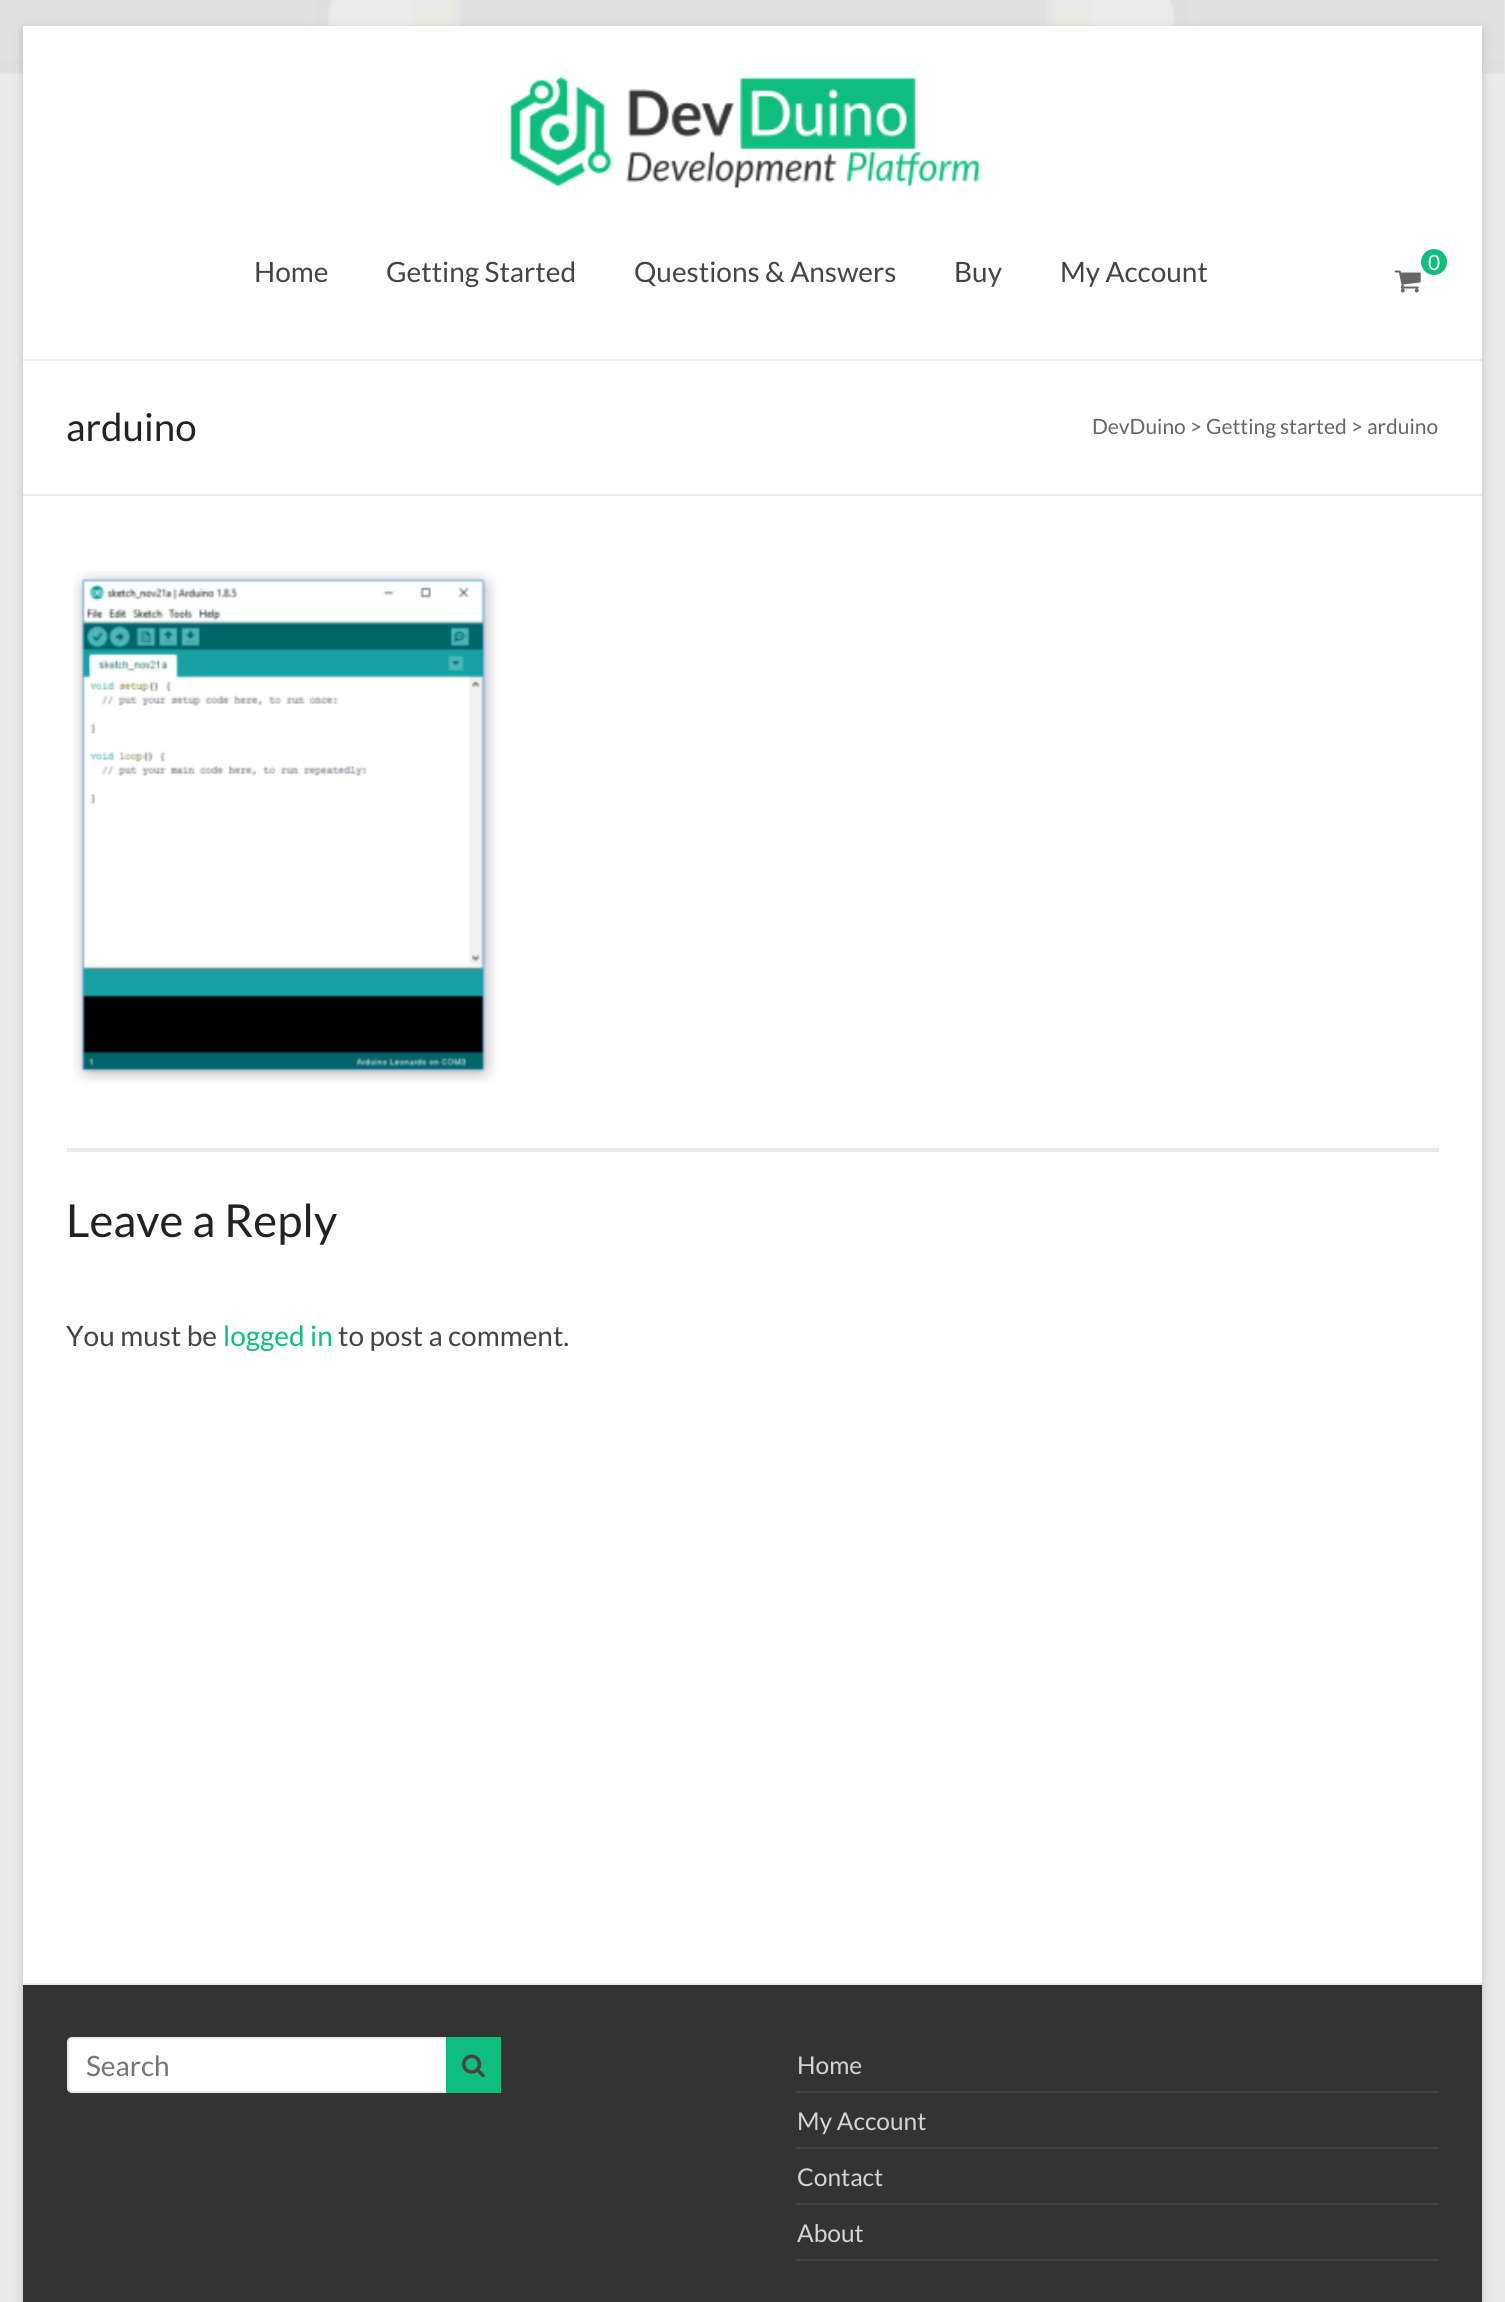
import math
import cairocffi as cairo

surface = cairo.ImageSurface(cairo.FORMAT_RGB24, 1505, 2302)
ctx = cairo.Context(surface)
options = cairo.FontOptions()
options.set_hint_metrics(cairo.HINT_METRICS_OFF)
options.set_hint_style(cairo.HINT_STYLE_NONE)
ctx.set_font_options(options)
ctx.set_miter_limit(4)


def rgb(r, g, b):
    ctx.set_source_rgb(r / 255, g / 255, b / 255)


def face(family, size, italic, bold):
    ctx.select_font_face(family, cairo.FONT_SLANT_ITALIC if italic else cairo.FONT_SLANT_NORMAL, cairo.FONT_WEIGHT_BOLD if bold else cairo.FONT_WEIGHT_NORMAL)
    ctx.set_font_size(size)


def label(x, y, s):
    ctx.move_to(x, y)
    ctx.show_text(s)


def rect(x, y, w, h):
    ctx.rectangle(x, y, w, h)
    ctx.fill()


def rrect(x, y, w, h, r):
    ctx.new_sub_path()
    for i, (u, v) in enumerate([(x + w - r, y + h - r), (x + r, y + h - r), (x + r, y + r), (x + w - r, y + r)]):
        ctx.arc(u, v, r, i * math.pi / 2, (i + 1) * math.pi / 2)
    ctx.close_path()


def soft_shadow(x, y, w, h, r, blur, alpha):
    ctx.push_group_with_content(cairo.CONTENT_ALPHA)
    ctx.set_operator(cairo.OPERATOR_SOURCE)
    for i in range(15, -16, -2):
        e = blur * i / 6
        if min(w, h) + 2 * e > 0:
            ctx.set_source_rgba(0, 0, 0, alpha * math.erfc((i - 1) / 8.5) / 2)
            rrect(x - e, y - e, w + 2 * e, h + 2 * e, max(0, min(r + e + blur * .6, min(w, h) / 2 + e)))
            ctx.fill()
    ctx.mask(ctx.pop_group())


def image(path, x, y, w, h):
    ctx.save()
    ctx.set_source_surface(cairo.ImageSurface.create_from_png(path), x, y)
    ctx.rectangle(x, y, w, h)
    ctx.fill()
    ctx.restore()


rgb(234, 234, 234)
ctx.paint()
image('image0.png', 0, 0, 1505, 83)
rgb(100, 100, 100)
soft_shadow(23, 30, 1459, 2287, 0, 5, 0.3)
rgb(255, 255, 255)
rect(23, 26, 1459, 1957)
rgb(234, 234, 234)
rect(23, 359, 1459, 2)
image('image1.png', 510, 76, 471, 114)
face('Lato', 28, 0, 0)
rgb(68, 68, 68)
label(254, 282, 'Home')
label(386, 282, 'Getting Started')
label(634, 282, 'Questions & Answers')
label(954, 282, 'Buy')
label(1060, 282, 'My Account')
rgb(15, 190, 124)
ctx.new_path()
ctx.arc(1434, 262, 13, 0, 2 * math.pi)
ctx.fill()
face('Lato', 21, 0, 0)
rgb(255, 255, 255)
label(1428, 270, '0')
image('image2.png', 1394, 270, 27, 23)
rgb(234, 234, 234)
rect(23, 494, 1459, 2)
face('Lato', 38.5, 0, 0)
rgb(34, 34, 34)
label(66, 441, 'arduino')
face('Lato', 21, 0, 0)
rgb(102, 102, 102)
label(1092, 434, 'DevDuino > Getting started > arduino')
image('image3.png', 73, 571, 424, 513)
rgb(234, 234, 234)
rect(67, 1148, 1372, 4)
face('Lato', 45.5, 0, 0)
rgb(34, 34, 34)
label(66, 1237, 'Leave a Reply')
face('Lato', 28, 0, 0)
rgb(68, 68, 68)
label(66, 1346, 'You must be')
rgb(15, 190, 124)
label(223, 1346, 'logged in')
rgb(68, 68, 68)
label(338, 1346, 'to post a comment.')
rgb(51, 51, 51)
rect(23, 1985, 1459, 317)
rgb(234, 234, 234)
rect(23, 1983, 1459, 2)
rgb(255, 255, 255)
rrect(68, 2038, 383, 54, 4)
ctx.fill_preserve()
rgb(234, 234, 234)
ctx.stroke()
rgb(117, 117, 117)
label(86, 2076, 'Search')
rgb(15, 190, 124)
rect(446, 2037, 55, 56)
image('image4.png', 462, 2054, 23, 24)
rgb(68, 68, 68)
rect(796, 2091, 643, 2)
face('Lato', 24.5, 0, 0)
rgb(213, 213, 213)
label(797, 2074, 'Home')
rgb(68, 68, 68)
rect(796, 2147, 643, 2)
rgb(213, 213, 213)
label(797, 2130, 'My Account')
rgb(68, 68, 68)
rect(796, 2203, 643, 2)
rgb(213, 213, 213)
label(797, 2186, 'Contact')
rgb(68, 68, 68)
rect(796, 2259, 643, 2)
rgb(213, 213, 213)
label(797, 2242, 'About')
surface.write_to_png('render.png')
